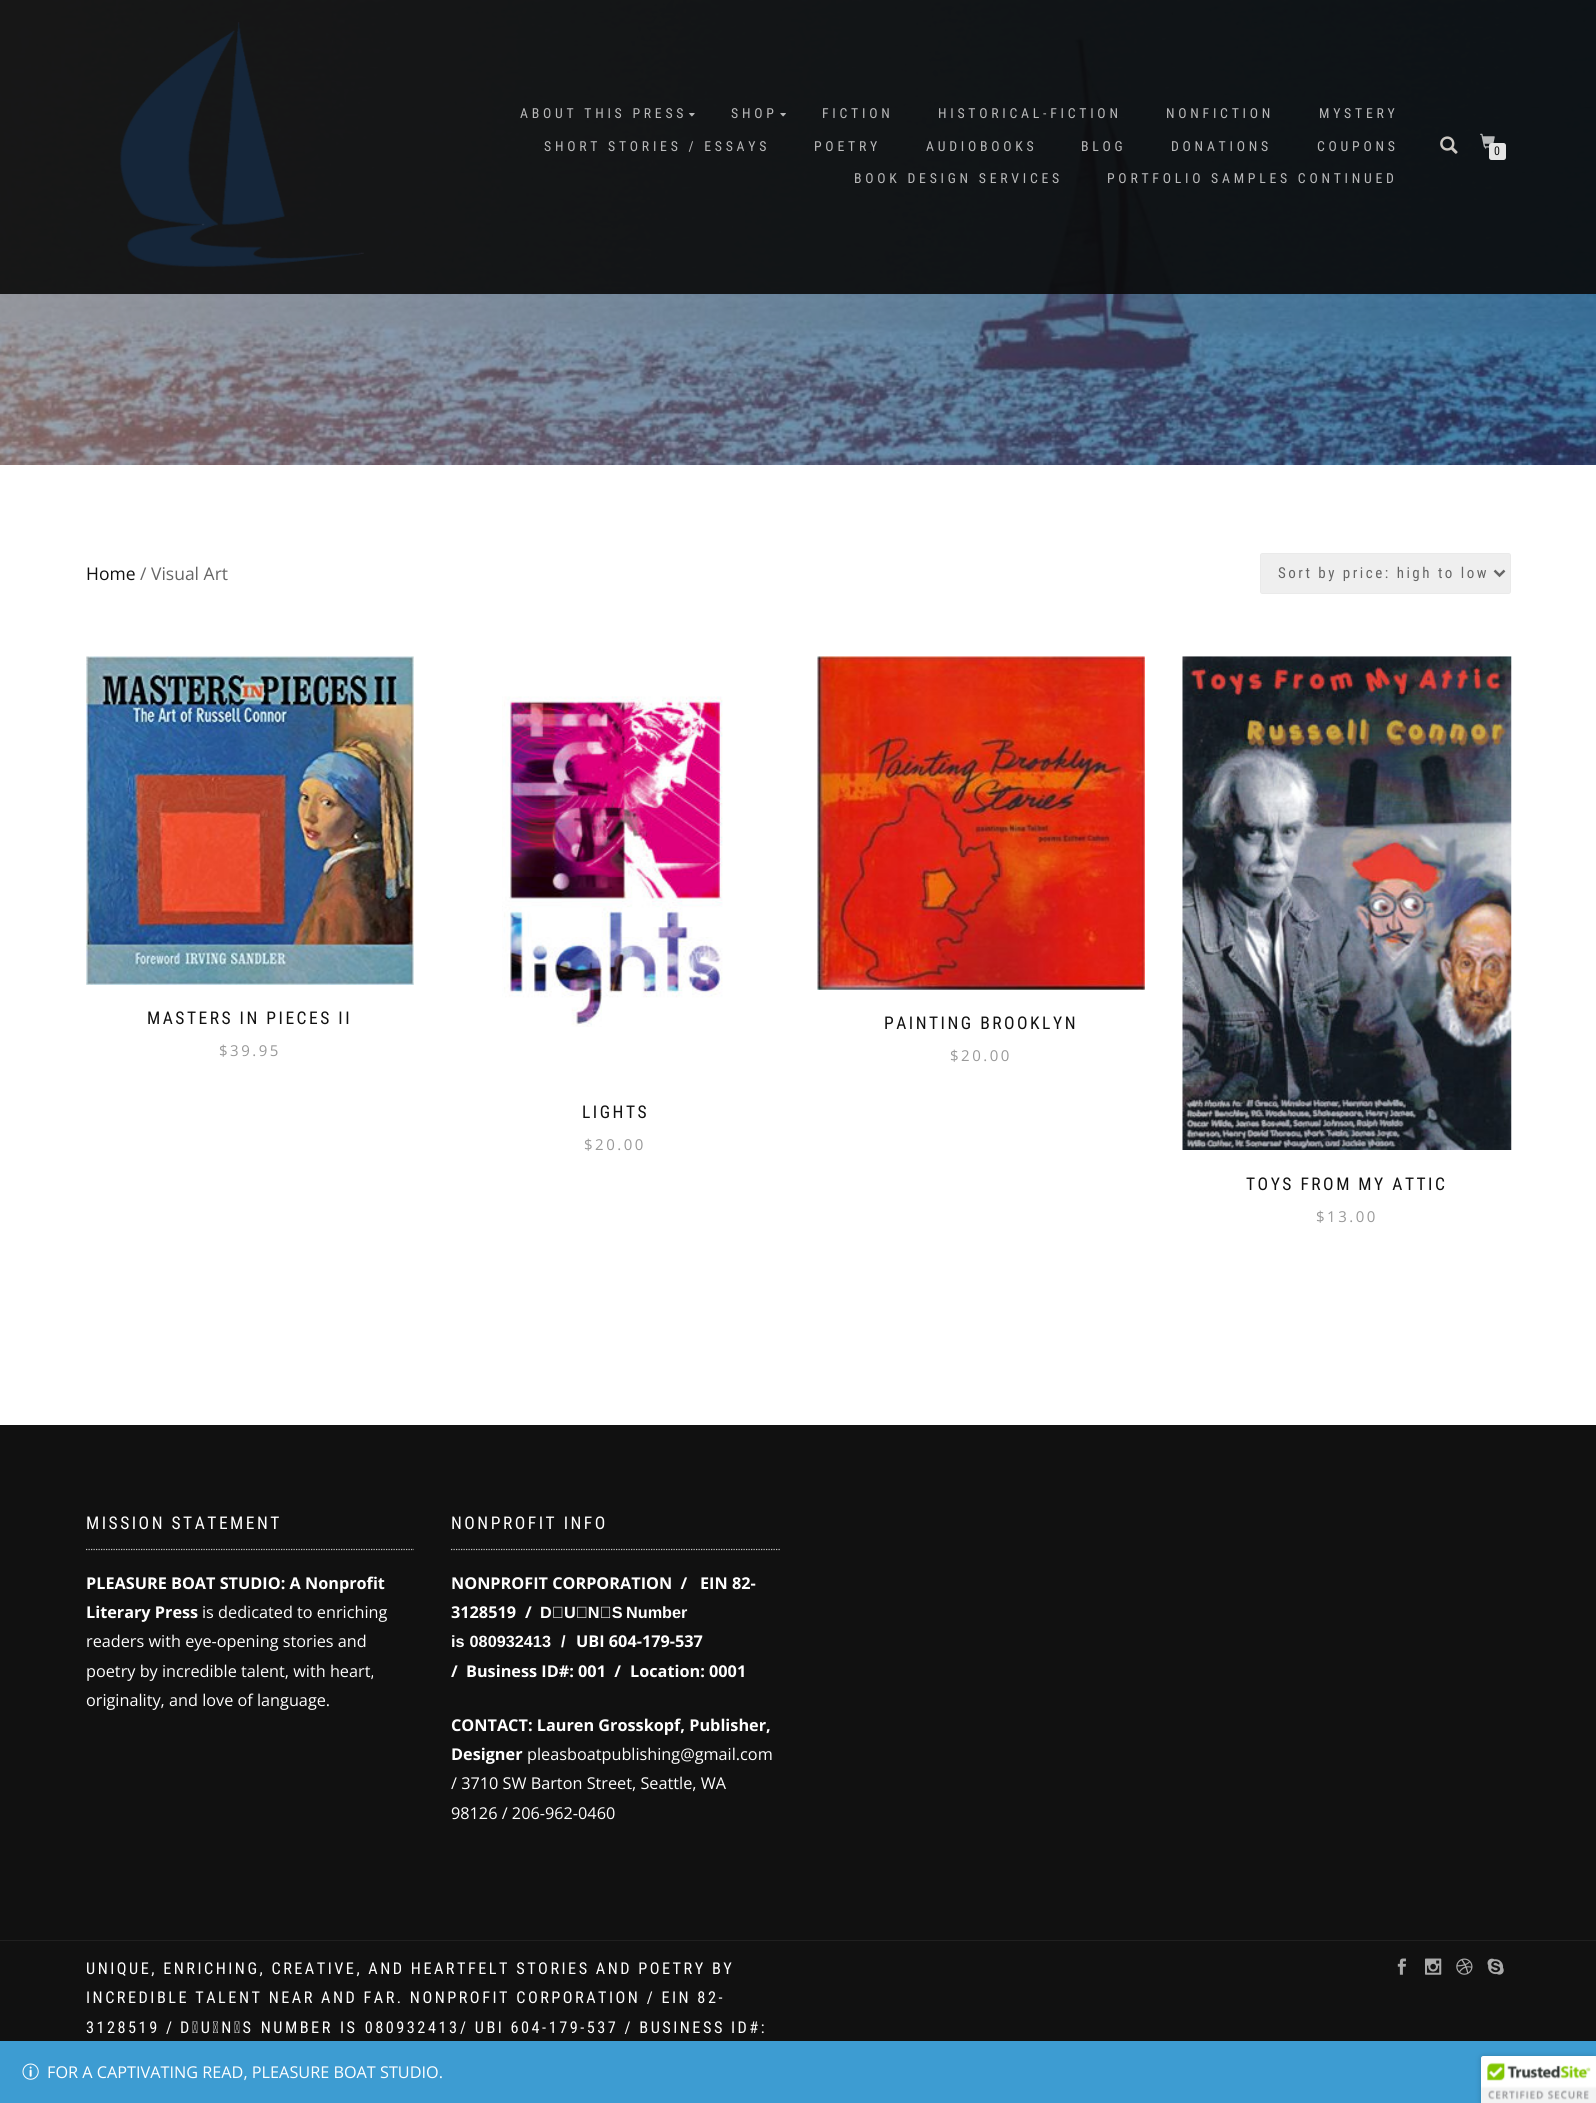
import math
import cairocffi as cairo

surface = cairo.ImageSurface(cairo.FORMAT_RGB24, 1596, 2103)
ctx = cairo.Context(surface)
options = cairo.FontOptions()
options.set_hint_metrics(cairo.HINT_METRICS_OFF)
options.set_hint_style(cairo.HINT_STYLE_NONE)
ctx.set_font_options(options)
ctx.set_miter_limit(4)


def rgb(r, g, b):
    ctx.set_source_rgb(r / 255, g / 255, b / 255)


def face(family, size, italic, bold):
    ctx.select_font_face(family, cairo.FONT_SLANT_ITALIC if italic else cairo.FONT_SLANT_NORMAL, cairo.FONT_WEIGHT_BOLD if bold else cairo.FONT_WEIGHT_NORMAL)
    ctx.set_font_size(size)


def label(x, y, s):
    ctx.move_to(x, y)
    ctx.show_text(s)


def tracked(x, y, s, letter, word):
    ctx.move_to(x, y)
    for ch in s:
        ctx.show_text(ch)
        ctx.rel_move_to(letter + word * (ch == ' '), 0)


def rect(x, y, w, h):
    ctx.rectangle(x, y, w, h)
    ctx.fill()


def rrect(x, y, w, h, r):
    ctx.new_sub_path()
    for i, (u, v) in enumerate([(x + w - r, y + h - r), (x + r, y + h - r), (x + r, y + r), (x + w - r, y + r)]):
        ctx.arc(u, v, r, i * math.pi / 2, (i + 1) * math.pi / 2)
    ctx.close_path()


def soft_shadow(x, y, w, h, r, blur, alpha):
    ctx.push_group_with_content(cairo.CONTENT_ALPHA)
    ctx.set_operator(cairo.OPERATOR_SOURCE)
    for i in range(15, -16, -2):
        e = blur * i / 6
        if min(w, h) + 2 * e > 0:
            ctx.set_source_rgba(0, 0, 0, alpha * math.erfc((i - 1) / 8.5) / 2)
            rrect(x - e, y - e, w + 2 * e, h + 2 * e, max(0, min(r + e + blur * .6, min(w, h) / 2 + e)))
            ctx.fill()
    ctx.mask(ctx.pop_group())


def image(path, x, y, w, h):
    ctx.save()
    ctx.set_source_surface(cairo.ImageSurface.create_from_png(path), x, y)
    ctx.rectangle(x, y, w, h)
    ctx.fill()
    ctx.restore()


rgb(255, 255, 255)
ctx.paint()
image('image5.png', 0, 0, 1596, 465)
ctx.set_source_rgba(0.039, 0.039, 0.039, 0.9)
rect(0, 0, 1596, 294)
image('image0.png', 120, 22, 244, 245)
face('Roboto Condensed', 13.75, 0, 0)
rgb(185, 185, 186)
tracked(520, 118, 'ABOUT THIS PRESS', 3.75, 0)
image('image1.png', 689, 113, 6, 4)
tracked(731, 118, 'SHOP', 3.75, 0)
image('image2.png', 780, 113, 6, 4)
tracked(822, 118, 'FICTION', 3.75, 0)
tracked(938, 118, 'HISTORICAL-FICTION', 3.75, 0)
tracked(1166, 118, 'NONFICTION', 3.75, 0)
tracked(1319, 118, 'MYSTERY', 3.75, 0)
tracked(544, 151, 'SHORT STORIES / ESSAYS', 3.75, 0)
tracked(814, 151, 'POETRY', 3.75, 0)
tracked(926, 151, 'AUDIOBOOKS', 3.75, 0)
tracked(1081, 151, 'BLOG', 3.75, 0)
tracked(1171, 151, 'DONATIONS', 3.75, 0)
tracked(1317, 151, 'COUPONS', 3.75, 0)
tracked(854, 183, 'BOOK DESIGN SERVICES', 3.75, 0)
tracked(1107, 183, 'PORTFOLIO SAMPLES CONTINUED', 3.75, 0)
image('image3.png', 1440, 136, 18, 18)
image('image4.png', 1480, 133, 15, 16)
rgb(229, 229, 229)
rrect(1489, 143, 17, 17, 2.5)
ctx.fill()
face('Roboto Condensed', 12, 0, 0)
rgb(17, 17, 17)
label(1494, 155, '0')
face('Open Sans', 17.5, 0, 0)
label(86, 580, 'Home')
rgb(102, 102, 102)
label(140, 580, '/ Visual Art')
rgb(239, 239, 239)
rrect(1260.5, 553.5, 250, 40, 2)
ctx.fill_preserve()
rgb(234, 234, 234)
ctx.set_line_width(1)
ctx.stroke()
ctx.new_path()
ctx.move_to(1494.5, 570.5)
ctx.line_to(1499.5, 575.5)
ctx.line_to(1504.5, 570.5)
rgb(102, 102, 102)
ctx.set_line_width(2.5)
ctx.stroke()
face('Roboto Condensed', 15, 0, 0)
tracked(1278, 578, 'Sort by price: high to low', 2.5, 0)
image('image6.png', 86, 656, 328, 329)
face('Roboto Condensed', 17.5, 0, 0)
rgb(17, 17, 17)
tracked(147, 1024, 'MASTERS IN PIECES II', 2.5, 0)
face('Open Sans', 15, 0, 0)
rgb(153, 153, 153)
tracked(219, 1056, '$39.95', 2.5, 0)
image('image7.png', 817, 656, 328, 334)
face('Roboto Condensed', 17.5, 0, 0)
rgb(17, 17, 17)
tracked(884, 1029, 'PAINTING BROOKLYN', 2.5, 0)
face('Open Sans', 15, 0, 0)
rgb(153, 153, 153)
tracked(950, 1061, '$20.00', 2.5, 0)
image('image8.png', 502, 696, 221, 331)
face('Roboto Condensed', 17.5, 0, 0)
rgb(17, 17, 17)
tracked(582, 1118, 'LIGHTS', 2.5, 0)
face('Open Sans', 15, 0, 0)
rgb(153, 153, 153)
tracked(584, 1150, '$20.00', 2.5, 0)
image('image9.png', 1182, 656, 330, 494)
face('Roboto Condensed', 17.5, 0, 0)
rgb(17, 17, 17)
tracked(1246, 1190, 'TOYS FROM MY ATTIC', 2.5, 0)
face('Open Sans', 15, 0, 0)
rgb(153, 153, 153)
tracked(1316, 1222, '$13.00', 2.5, 0)
rgb(17, 17, 17)
rect(0, 1425, 1596, 515)
ctx.new_path()
ctx.move_to(86, 1549.5)
ctx.line_to(414, 1549.5)
rgb(194, 194, 194)
ctx.set_line_width(1.2)
ctx.set_dash([1.25, 1.25])
ctx.stroke()
face('Roboto Condensed', 17.5, 0, 0)
rgb(255, 255, 255)
tracked(86, 1529, 'MISSION STATEMENT', 2.5, 0)
face('Open Sans', 16.25, 0, 1)
label(86, 1589, 'PLEASURE BOAT STUDIO: A Nonprofit')
label(86, 1618, 'Literary Press')
face('Open Sans', 16.25, 0, 0)
label(202, 1618, 'is dedicated to enriching')
label(86, 1647, 'readers with eye-opening stories and')
label(86, 1677, 'poetry by incredible talent, with heart,')
label(86, 1706, 'originality, and love of language.')
ctx.new_path()
ctx.move_to(451, 1549.5)
ctx.line_to(780, 1549.5)
rgb(194, 194, 194)
ctx.stroke()
face('Roboto Condensed', 17.5, 0, 0)
rgb(255, 255, 255)
tracked(451, 1529, 'NONPROFIT INFO', 2.5, 0)
face('Open Sans', 16.25, 0, 1)
label(451, 1589, 'NONPROFIT CORPORATION  /   EIN 82-')
label(451, 1618, '3128519')
label(525, 1618, '/')
face('Liberation Sans', 16.25, 0, 1)
label(540, 1618, 'D‑U‑N‑S')
label(626, 1618, 'Number')
tracked(451, 1647, 'is 080932413  /', 0, 0.5)
face('Open Sans', 16.25, 0, 1)
label(576, 1647, 'UBI 604-179-537')
label(451, 1677, '/')
label(466, 1677, 'Business ID#: 001  /')
label(630, 1677, 'Location: 0001')
label(451, 1731, 'CONTACT: Lauren Grosskopf, Publisher,')
label(451, 1760, 'Designer')
face('Open Sans', 16.25, 0, 0)
label(527, 1760, 'pleasboatpublishing@gmail.com')
label(451, 1789, '/ 3710 SW Barton Street, Seattle, WA')
label(451, 1819, '98126 / 206-962-0460')
rgb(17, 17, 17)
rect(0, 1941, 1596, 100)
rgb(32, 32, 32)
rect(0, 1940, 1596, 1)
face('Roboto Condensed', 16.25, 0, 0)
rgb(255, 255, 255)
tracked(86, 1974, 'UNIQUE, ENRICHING, CREATIVE, AND HEARTFELT STORIES AND POETRY BY', 2.5, 0)
tracked(86, 2003, 'INCREDIBLE TALENT NEAR AND FAR. NONPROFIT CORPORATION / EIN 82-', 2.5, 0)
tracked(86, 2033, '3128519 /', 2.5, 0)
tracked(180, 2033, 'D‑U‑N‑S NUMBER IS 080932413', 2.5, 1)
tracked(460, 2033, '/ UBI 604-179-537 / BUSINESS ID#:', 2.5, 0)
image('image10.png', 1397, 1958, 9, 17)
image('image11.png', 1425, 1958, 17, 17)
image('image12.png', 1456, 1958, 17, 17)
image('image13.png', 1487, 1958, 17, 17)
rgb(61, 156, 210)
rect(0, 2041, 1596, 62)
image('image14.png', 22, 2063, 17, 17)
face('Open Sans', 16.25, 0, 0)
rgb(255, 255, 255)
label(47, 2078, 'FOR A CAPTIVATING READ, PLEASURE BOAT STUDIO.')
rgb(0, 0, 0)
soft_shadow(1481, 2056, 115, 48, 2.5, 3, 0.2)
rgb(255, 255, 255)
ctx.new_path()
ctx.move_to(1483.5, 2056)
ctx.line_to(1596, 2056)
ctx.line_to(1596, 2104)
ctx.line_to(1481, 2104)
ctx.line_to(1481, 2058.5)
ctx.curve_to(1481, 2057, 1482, 2056, 1483.5, 2056)
ctx.close_path()
ctx.fill()
image('image15.png', 1481, 2056, 115, 47)
surface.write_to_png('render.png')
